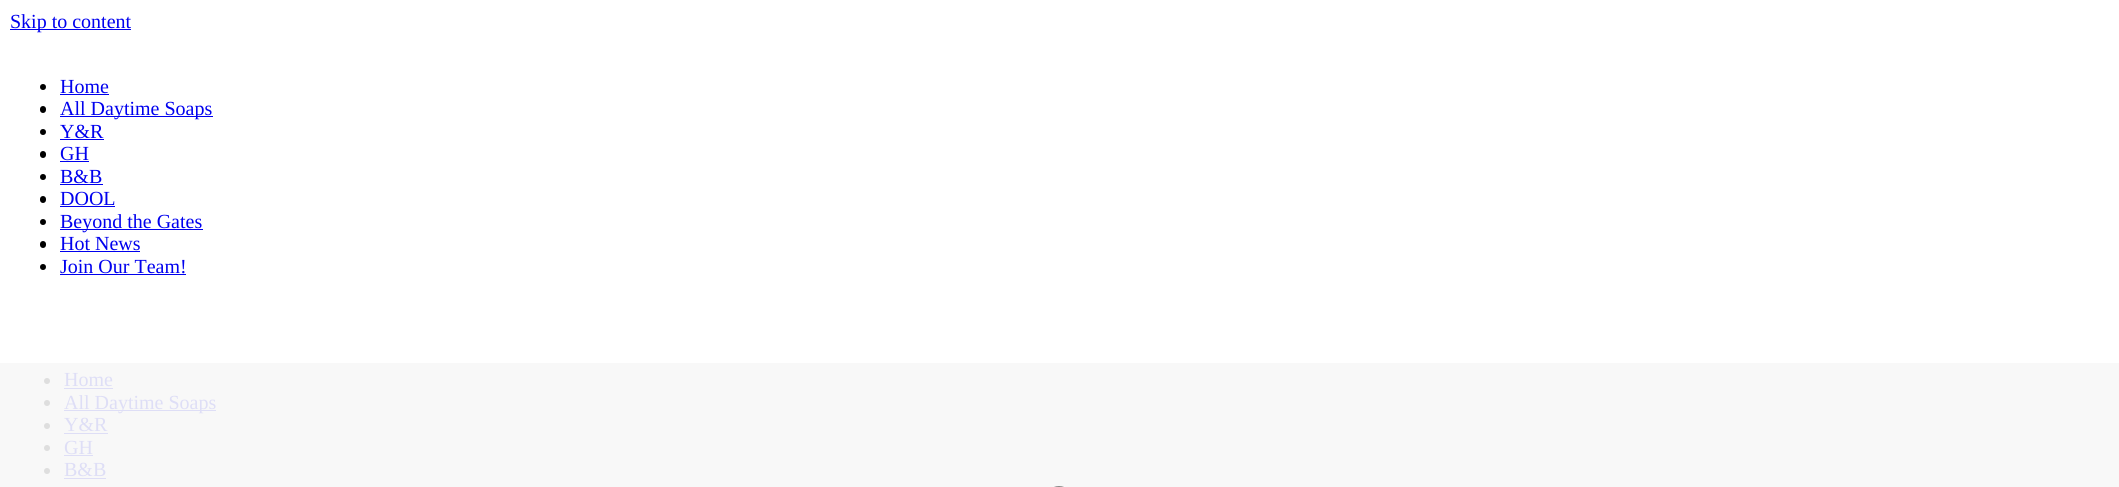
import math
import cairocffi as cairo

surface = cairo.ImageSurface(cairo.FORMAT_RGB24, 2119, 487)
ctx = cairo.Context(surface)
options = cairo.FontOptions()
options.set_hint_metrics(cairo.HINT_METRICS_OFF)
options.set_hint_style(cairo.HINT_STYLE_NONE)
ctx.set_font_options(options)
ctx.set_miter_limit(4)


def rgb(r, g, b):
    ctx.set_source_rgb(r / 255, g / 255, b / 255)


def face(family, size, italic, bold):
    ctx.select_font_face(family, cairo.FONT_SLANT_ITALIC if italic else cairo.FONT_SLANT_NORMAL, cairo.FONT_WEIGHT_BOLD if bold else cairo.FONT_WEIGHT_NORMAL)
    ctx.set_font_size(size)


def label(x, y, s):
    ctx.move_to(x, y)
    ctx.show_text(s)


def rect(x, y, w, h):
    ctx.rectangle(x, y, w, h)
    ctx.fill()


def rrect(x, y, w, h, r):
    ctx.new_sub_path()
    for i, (u, v) in enumerate([(x + w - r, y + h - r), (x + r, y + h - r), (x + r, y + r), (x + w - r, y + r)]):
        ctx.arc(u, v, r, i * math.pi / 2, (i + 1) * math.pi / 2)
    ctx.close_path()


rgb(255, 255, 255)
ctx.paint()
rgb(248, 248, 248)
rect(0, 363, 2119, 124)
rgb(0, 0, 238)
rect(10, 29, 121, 1)
face('Liberation Serif', 20, 0, 0)
label(10, 28, 'Skip to content')
rgb(0, 0, 0)
ctx.new_path()
ctx.arc(43, 87, 3, 0, 2 * math.pi)
ctx.fill()
rgb(0, 0, 238)
label(60, 93, 'Home')
rect(60, 94, 49, 1)
rgb(0, 0, 0)
rrect(40, 106, 6, 7, 3)
ctx.fill()
rgb(0, 0, 238)
rect(60, 116, 153, 1)
label(60, 115, 'All Daytime Soaps')
rgb(0, 0, 0)
ctx.new_path()
ctx.arc(43, 132, 3, 0, 2 * math.pi)
ctx.fill()
rgb(0, 0, 238)
label(60, 138, 'Y&R')
rect(60, 139, 44, 1)
rgb(0, 0, 0)
rrect(40, 151, 6, 7, 3)
ctx.fill()
rgb(0, 0, 238)
label(60, 160, 'GH')
rect(60, 161, 29, 1)
rgb(0, 0, 0)
ctx.new_path()
ctx.arc(43, 177, 3, 0, 2 * math.pi)
ctx.fill()
rgb(0, 0, 238)
label(60, 183, 'B&B')
rect(60, 184, 43, 1)
rgb(0, 0, 0)
rrect(40, 196, 6, 7, 3)
ctx.fill()
rgb(0, 0, 238)
label(60, 205, 'DOOL')
rect(60, 206, 55, 1)
rgb(0, 0, 0)
ctx.new_path()
ctx.arc(43, 222, 3, 0, 2 * math.pi)
ctx.fill()
rgb(0, 0, 238)
rect(60, 229, 143, 1)
label(60, 228, 'Beyond the Gates')
rgb(0, 0, 0)
rrect(40, 241, 6, 7, 3)
ctx.fill()
rgb(0, 0, 238)
label(60, 250, 'Hot News')
rect(60, 251, 80, 1)
rgb(0, 0, 0)
ctx.new_path()
ctx.arc(43, 267, 3, 0, 2 * math.pi)
ctx.fill()
rgb(0, 0, 238)
label(60, 273, 'Join Our Team!')
rect(60, 274, 126, 1)
rgb(222, 222, 222)
ctx.new_path()
ctx.arc(47, 381, 3, 0, 2 * math.pi)
ctx.fill()
rgb(222, 222, 246)
label(64, 386, 'Home')
rect(64, 388, 49, 1)
rgb(222, 222, 222)
ctx.new_path()
ctx.arc(47, 403, 3, 0, 2 * math.pi)
ctx.fill()
rgb(222, 222, 246)
rect(64, 410, 152, 1)
label(64, 409, 'All Daytime Soaps')
rgb(222, 222, 222)
ctx.new_path()
ctx.arc(47, 426, 3, 0, 2 * math.pi)
ctx.fill()
rgb(222, 222, 246)
label(64, 431, 'Y&R')
rect(64, 433, 44, 1)
rgb(222, 222, 222)
ctx.new_path()
ctx.arc(47, 448, 3, 0, 2 * math.pi)
ctx.fill()
rgb(222, 222, 246)
label(64, 454, 'GH')
rect(64, 455, 29, 1)
rgb(222, 222, 222)
ctx.new_path()
ctx.arc(47, 471, 3, 0, 2 * math.pi)
ctx.fill()
rgb(222, 222, 246)
label(64, 476, 'B&B')
rect(64, 478, 42, 1)
rrect(1045.5, 486.5, 27, 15, 13.5)
rgb(136, 136, 136)
ctx.set_line_width(1)
ctx.stroke()
surface.write_to_png('render.png')
